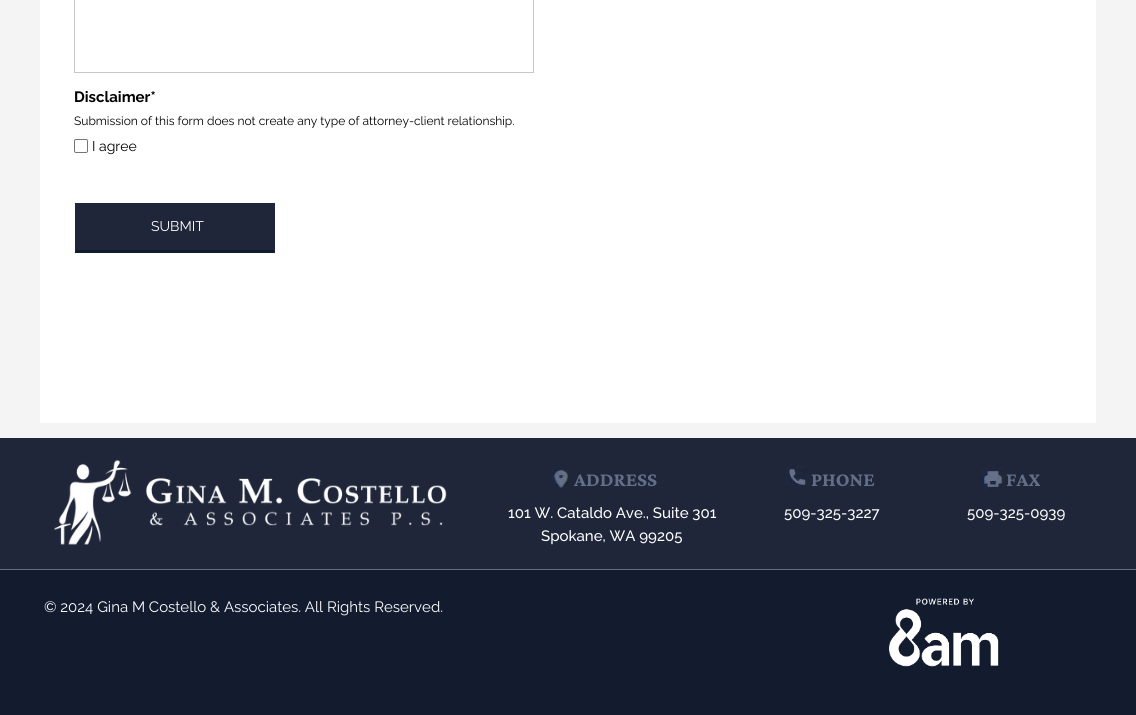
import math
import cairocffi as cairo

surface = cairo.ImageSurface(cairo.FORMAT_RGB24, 1136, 715)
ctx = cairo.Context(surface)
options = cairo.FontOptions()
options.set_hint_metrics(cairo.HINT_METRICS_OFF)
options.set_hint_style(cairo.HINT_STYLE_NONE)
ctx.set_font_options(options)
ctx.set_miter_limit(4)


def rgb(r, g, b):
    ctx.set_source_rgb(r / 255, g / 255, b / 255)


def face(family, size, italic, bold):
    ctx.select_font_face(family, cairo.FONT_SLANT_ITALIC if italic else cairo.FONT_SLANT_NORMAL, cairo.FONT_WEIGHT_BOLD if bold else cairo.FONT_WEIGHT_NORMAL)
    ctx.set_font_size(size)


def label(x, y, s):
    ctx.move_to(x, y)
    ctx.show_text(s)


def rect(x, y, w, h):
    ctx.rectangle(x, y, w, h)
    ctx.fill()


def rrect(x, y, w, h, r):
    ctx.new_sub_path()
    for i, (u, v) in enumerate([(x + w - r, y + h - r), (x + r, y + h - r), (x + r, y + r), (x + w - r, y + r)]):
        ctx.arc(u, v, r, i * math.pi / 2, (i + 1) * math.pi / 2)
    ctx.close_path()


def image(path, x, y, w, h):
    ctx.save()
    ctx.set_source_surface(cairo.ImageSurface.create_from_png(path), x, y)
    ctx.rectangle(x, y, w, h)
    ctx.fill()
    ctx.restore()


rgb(244, 244, 244)
ctx.paint()
rgb(255, 255, 255)
rect(40, 0, 1056, 423)
ctx.rectangle(74.5, -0.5, 459, 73)
rgb(199, 199, 199)
ctx.set_line_width(1)
ctx.stroke()
face('Raleway', 15, 0, 1)
rgb(0, 0, 0)
label(74, 102, 'Disclaimer*')
face('Raleway', 12, 0, 0)
label(74, 125, 'Submission of this form does not create any type of attorney-client relationship.')
rrect(74.5, 139.5, 13, 13, 1.5)
rgb(118, 118, 118)
ctx.stroke()
face('Raleway', 14, 0, 0)
rgb(0, 0, 0)
label(92, 151, 'I agree')
rgb(31, 38, 57)
rect(75, 203, 200, 50)
rgb(19, 27, 47)
ctx.new_path()
ctx.move_to(275, 253)
ctx.line_to(75, 253)
ctx.line_to(76, 250)
ctx.line_to(274, 250)
ctx.close_path()
ctx.fill()
rgb(255, 255, 255)
label(151, 231, 'SUBMIT')
rgb(31, 38, 57)
rect(0, 438, 1136, 131)
rgb(99, 111, 137)
rect(0, 569, 1136, 1)
image('image0.png', 54, 459, 393, 86)
image('image1.png', 551, 468, 17, 20)
face('Crimson Pro', 20, 0, 1)
label(574, 486, 'ADDRESS')
face('Raleway Medium', 15, 0, 0)
rgb(255, 255, 255)
label(508, 518, '101 W. Cataldo Ave., Suite 301')
label(541, 541, 'Spokane, WA 99205')
image('image2.png', 786, 466, 22, 20)
face('Crimson Pro', 20, 0, 1)
rgb(99, 111, 137)
label(811, 486, 'PHONE')
face('Raleway Medium', 15, 0, 0)
rgb(255, 255, 255)
label(784, 518, '509-325-3227')
image('image3.png', 981, 468, 24, 22)
face('Crimson Pro', 20, 0, 1)
rgb(99, 111, 137)
label(1006, 486, 'FAX')
face('Raleway Medium', 15, 0, 0)
rgb(255, 255, 255)
label(967, 518, '509-325-0939')
rgb(19, 27, 47)
rect(0, 570, 1136, 145)
face('Raleway', 15, 0, 0)
rgb(255, 255, 255)
label(44, 612, '© 2024 Gina M Costello & Associates. All Rights Reserved.')
image('image4.png', 889, 598, 110, 69)
surface.write_to_png('render.png')
